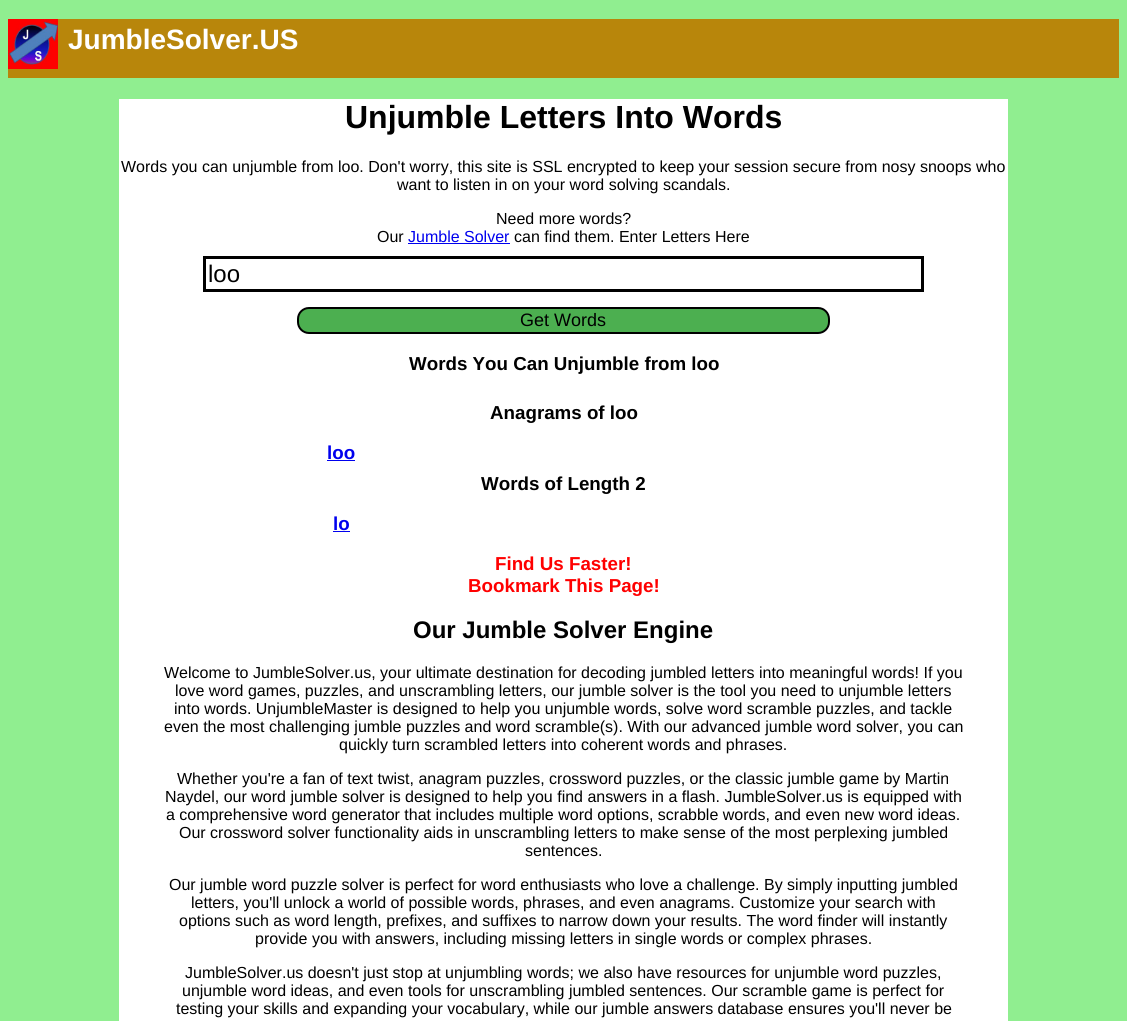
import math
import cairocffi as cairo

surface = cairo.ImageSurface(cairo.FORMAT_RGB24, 1127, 1021)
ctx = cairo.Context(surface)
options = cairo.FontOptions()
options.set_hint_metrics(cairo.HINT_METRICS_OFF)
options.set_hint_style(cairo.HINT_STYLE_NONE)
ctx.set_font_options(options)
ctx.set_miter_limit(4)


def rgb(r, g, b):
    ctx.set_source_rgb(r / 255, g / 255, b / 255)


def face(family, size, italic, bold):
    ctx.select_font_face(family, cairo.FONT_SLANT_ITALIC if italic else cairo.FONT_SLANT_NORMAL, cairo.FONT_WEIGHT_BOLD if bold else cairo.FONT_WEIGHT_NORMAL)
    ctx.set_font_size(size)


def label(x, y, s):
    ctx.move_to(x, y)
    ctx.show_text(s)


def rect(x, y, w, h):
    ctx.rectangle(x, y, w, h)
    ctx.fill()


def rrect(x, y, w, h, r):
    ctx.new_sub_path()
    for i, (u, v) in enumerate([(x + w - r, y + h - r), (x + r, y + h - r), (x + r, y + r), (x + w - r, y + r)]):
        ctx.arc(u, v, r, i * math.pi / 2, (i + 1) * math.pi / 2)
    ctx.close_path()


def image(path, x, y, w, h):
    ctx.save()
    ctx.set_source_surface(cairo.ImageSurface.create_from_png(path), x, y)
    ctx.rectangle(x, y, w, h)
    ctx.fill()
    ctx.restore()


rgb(144, 238, 144)
ctx.paint()
rgb(184, 134, 11)
rect(8, 19, 1111, 59)
image('image0.png', 8, 19, 50, 50)
face('Liberation Sans', 28, 0, 1)
rgb(255, 255, 255)
label(68, 49, 'JumbleSolver.US')
rect(119, 99, 889, 922)
face('Liberation Sans', 32, 0, 1)
rgb(0, 0, 0)
label(345, 128, 'Unjumble Letters Into Words')
face('Liberation Sans', 16, 0, 0)
label(121, 172, 'Words you can unjumble from loo. Don\'t worry, this site is SSL encrypted to keep your session secure from nosy snoops who')
label(397, 190, 'want to listen in on your word solving scandals.')
label(496, 224, 'Need more words?')
label(377, 242, 'Our')
rgb(0, 0, 238)
label(408, 242, 'Jumble Solver')
rect(408, 243, 102, 1)
rgb(0, 0, 0)
label(514, 242, 'can find them. Enter Letters Here')
ctx.rectangle(204.5, 257.5, 718, 33)
ctx.set_line_width(3)
ctx.stroke()
face('Liberation Sans', 24, 0, 0)
label(208, 282, 'loo')
rgb(76, 175, 80)
rrect(298, 308, 531, 25, 11)
ctx.fill_preserve()
rgb(0, 0, 0)
ctx.set_line_width(2)
ctx.stroke()
face('Liberation Sans', 18, 0, 0)
label(520, 326, 'Get Words')
face('Liberation Sans', 18.75, 0, 1)
label(409, 370, 'Words You Can Unjumble from loo')
label(490, 419, 'Anagrams of loo')
rgb(0, 0, 238)
label(327, 459, 'loo')
rect(327, 460, 28, 1)
rgb(0, 0, 0)
label(481, 490, 'Words of Length 2')
rgb(0, 0, 238)
label(333, 530, 'lo')
rect(333, 531, 17, 1)
rgb(255, 0, 0)
label(495, 570, 'Find Us Faster!')
label(468, 592, 'Bookmark This Page!')
face('Liberation Sans', 24, 0, 1)
rgb(0, 0, 0)
label(413, 638, 'Our Jumble Solver Engine')
face('Liberation Sans', 16, 0, 0)
label(164, 678, 'Welcome to JumbleSolver.us, your ultimate destination for decoding jumbled letters into meaningful words! If you')
label(175, 696, 'love word games, puzzles, and unscrambling letters, our jumble solver is the tool you need to unjumble letters')
label(174, 714, 'into words. UnjumbleMaster is designed to help you unjumble words, solve word scramble puzzles, and tackle')
label(164, 732, 'even the most challenging jumble puzzles and word scramble(s). With our advanced jumble word solver, you can')
label(339, 750, 'quickly turn scrambled letters into coherent words and phrases.')
label(177, 784, 'Whether you\'re a fan of text twist, anagram puzzles, crossword puzzles, or the classic jumble game by Martin')
label(165, 802, 'Naydel, our word jumble solver is designed to help you find answers in a flash. JumbleSolver.us is equipped with')
label(166, 820, 'a comprehensive word generator that includes multiple word options, scrabble words, and even new word ideas.')
label(179, 838, 'Our crossword solver functionality aids in unscrambling letters to make sense of the most perplexing jumbled')
label(525, 856, 'sentences.')
label(169, 890, 'Our jumble word puzzle solver is perfect for word enthusiasts who love a challenge. By simply inputting jumbled')
label(191, 908, 'letters, you\'ll unlock a world of possible words, phrases, and even anagrams. Customize your search with')
label(179, 926, 'options such as word length, prefixes, and suffixes to narrow down your results. The word finder will instantly')
label(255, 944, 'provide you with answers, including missing letters in single words or complex phrases.')
label(185, 978, 'JumbleSolver.us doesn\'t just stop at unjumbling words; we also have resources for unjumble word puzzles,')
label(182, 996, 'unjumble word ideas, and even tools for unscrambling jumbled sentences. Our scramble game is perfect for')
label(176, 1014, 'testing your skills and expanding your vocabulary, while our jumble answers database ensures you\'ll never be')
surface.write_to_png('render.png')
